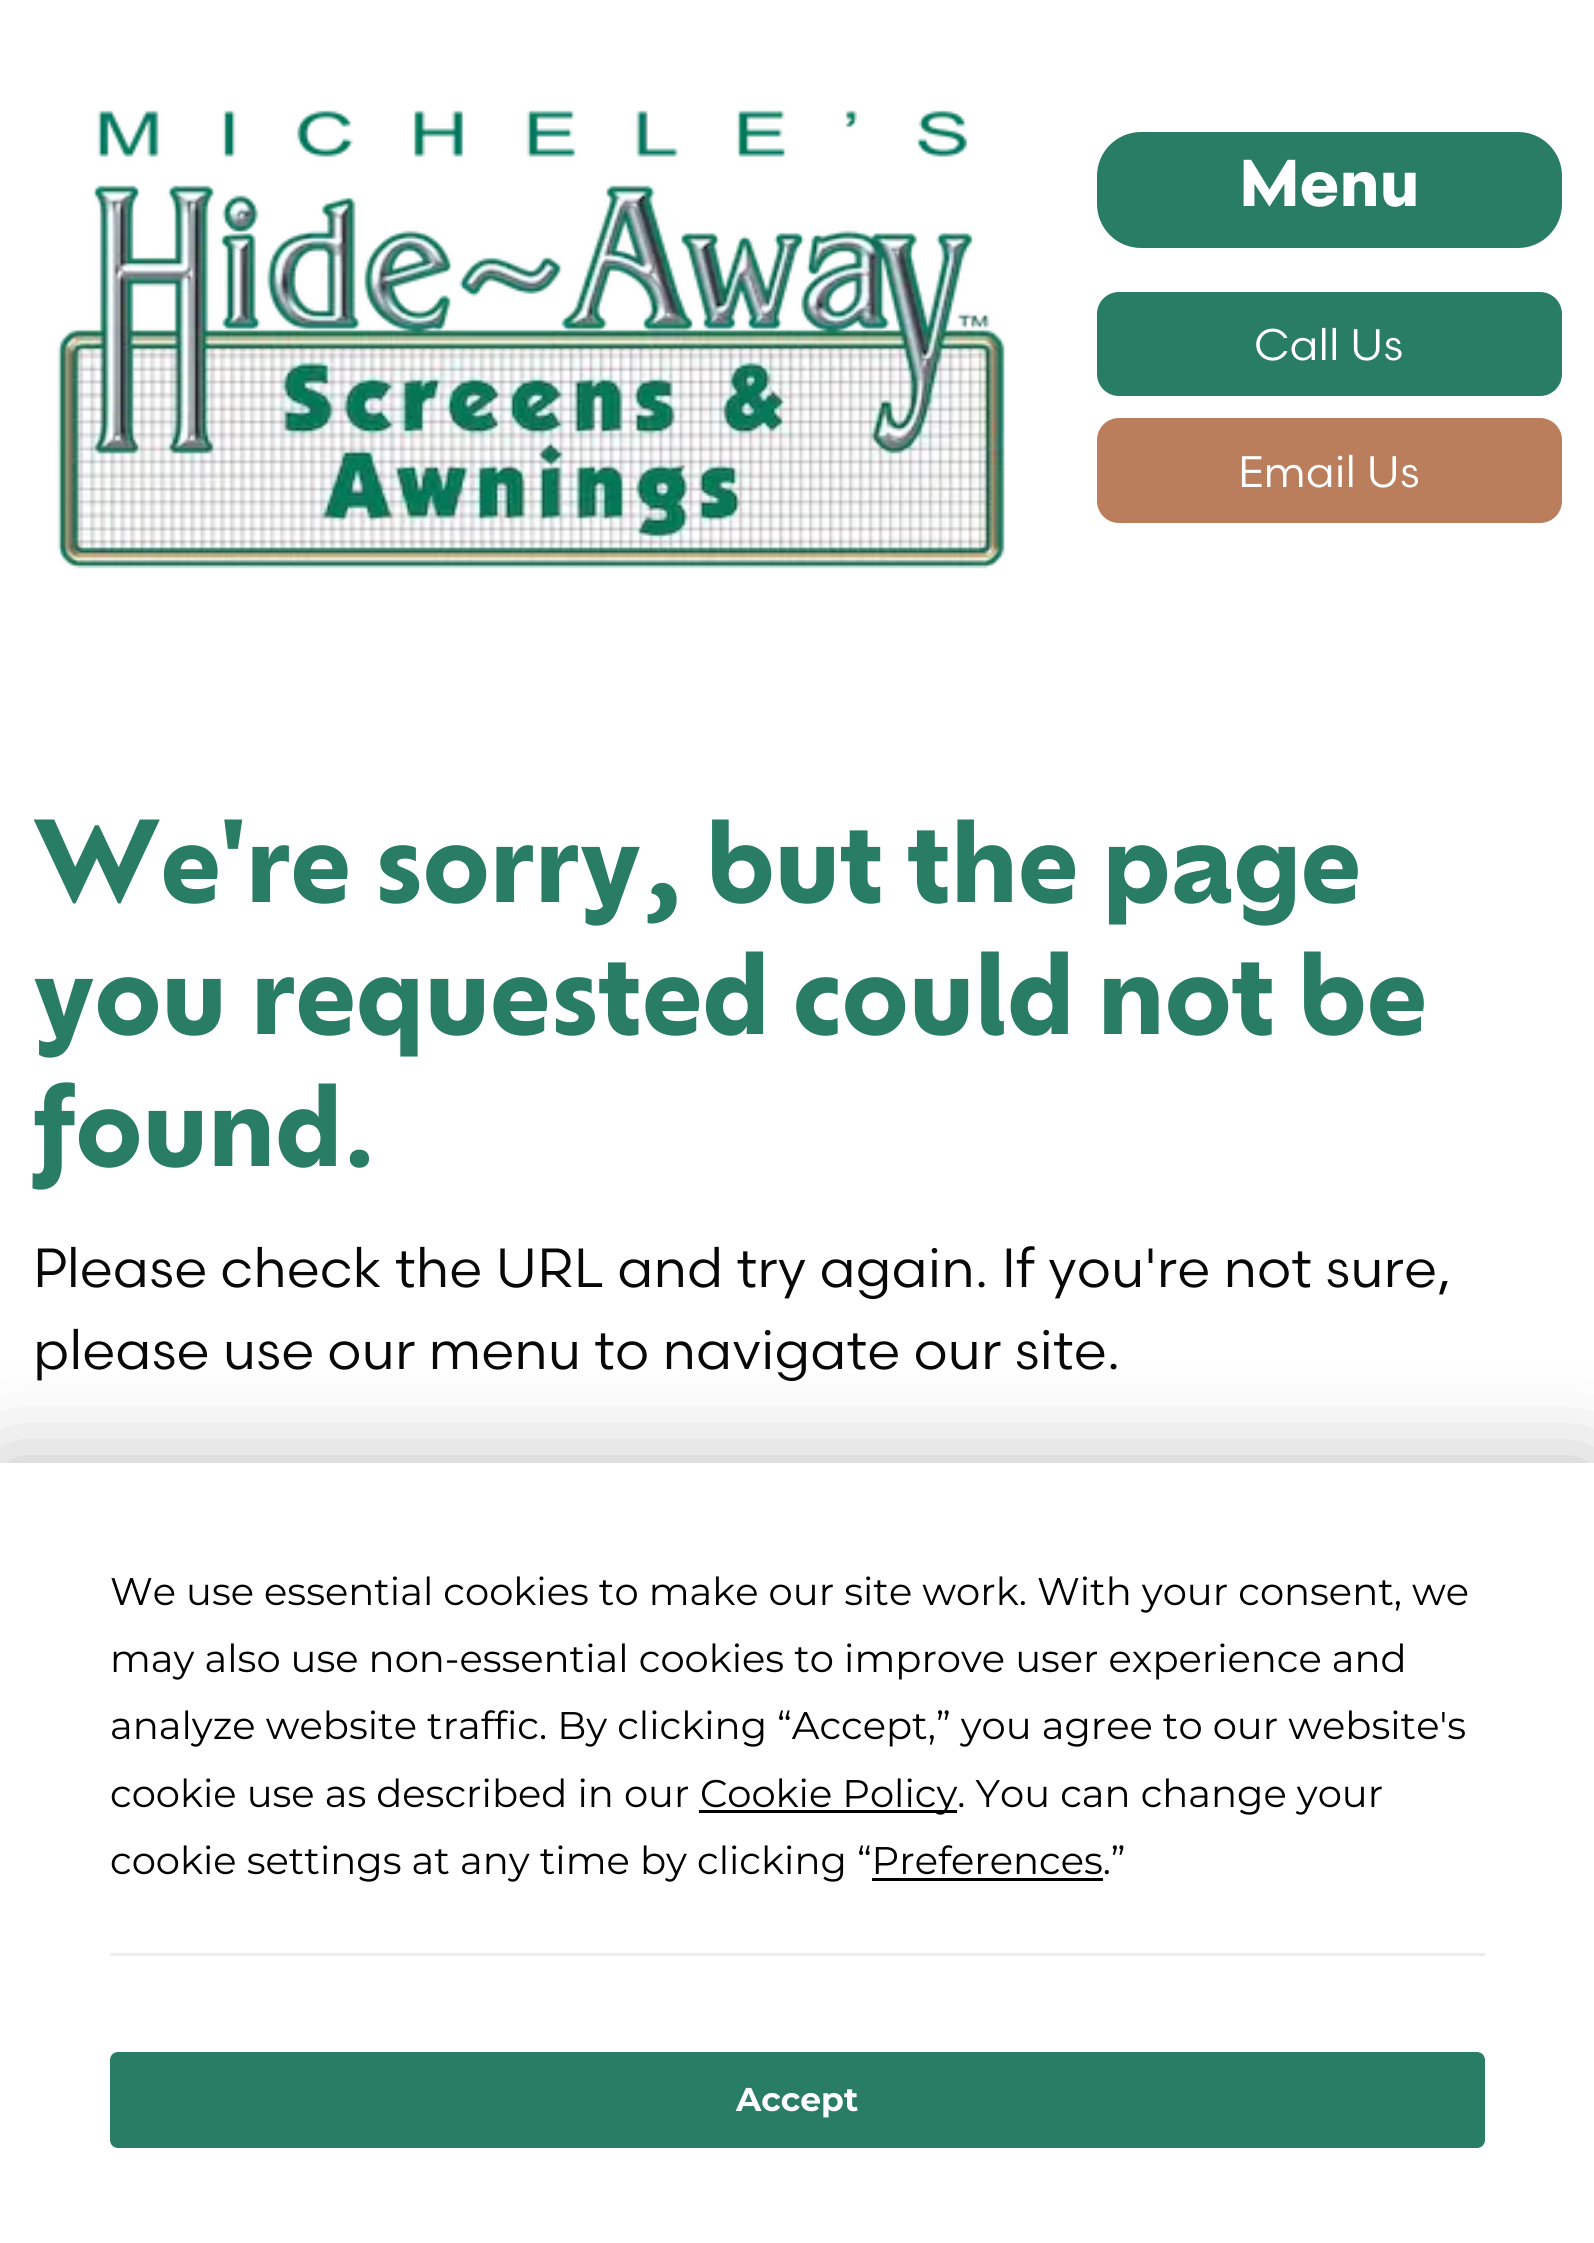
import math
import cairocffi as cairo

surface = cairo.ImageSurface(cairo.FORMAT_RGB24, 1594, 2243)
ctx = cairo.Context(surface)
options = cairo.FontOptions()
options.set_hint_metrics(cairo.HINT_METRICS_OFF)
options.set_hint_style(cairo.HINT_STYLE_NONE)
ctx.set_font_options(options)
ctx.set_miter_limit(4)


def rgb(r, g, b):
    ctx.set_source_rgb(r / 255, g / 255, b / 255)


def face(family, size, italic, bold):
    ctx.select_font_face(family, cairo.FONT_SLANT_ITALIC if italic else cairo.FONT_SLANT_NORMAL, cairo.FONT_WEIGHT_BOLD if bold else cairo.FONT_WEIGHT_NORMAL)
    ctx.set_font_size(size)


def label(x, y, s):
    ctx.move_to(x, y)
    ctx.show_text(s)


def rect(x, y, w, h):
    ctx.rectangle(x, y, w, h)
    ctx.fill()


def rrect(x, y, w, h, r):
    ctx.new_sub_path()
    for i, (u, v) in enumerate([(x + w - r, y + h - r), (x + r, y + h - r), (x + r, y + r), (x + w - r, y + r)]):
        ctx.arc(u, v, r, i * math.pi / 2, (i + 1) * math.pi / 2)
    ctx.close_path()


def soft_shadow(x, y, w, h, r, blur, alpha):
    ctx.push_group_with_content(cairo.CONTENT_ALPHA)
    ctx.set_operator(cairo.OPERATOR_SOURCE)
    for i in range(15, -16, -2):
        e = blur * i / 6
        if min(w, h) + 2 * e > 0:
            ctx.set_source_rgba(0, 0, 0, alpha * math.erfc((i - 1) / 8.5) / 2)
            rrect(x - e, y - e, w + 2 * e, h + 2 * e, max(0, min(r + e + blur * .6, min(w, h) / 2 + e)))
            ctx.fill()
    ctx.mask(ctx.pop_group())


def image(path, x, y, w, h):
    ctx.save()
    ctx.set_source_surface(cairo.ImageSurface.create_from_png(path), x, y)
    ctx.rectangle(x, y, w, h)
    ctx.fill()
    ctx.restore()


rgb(255, 255, 255)
ctx.paint()
image('image0.png', 57, 110, 948, 459)
rgb(41, 125, 100)
rrect(1101, 136, 457, 108, 40)
ctx.fill_preserve()
ctx.set_line_width(8)
ctx.stroke()
face('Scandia', 66, 0, 1)
rgb(255, 255, 255)
label(1239, 206, 'Menu')
rgb(41, 125, 100)
rrect(1098.5, 293.5, 462, 101, 20.5)
ctx.fill_preserve()
ctx.set_line_width(3)
ctx.stroke()
face('Scandia', 44, 0, 0)
rgb(255, 255, 255)
label(1254, 360, 'Call Us')
rgb(187, 126, 93)
rrect(1098.5, 419.5, 462, 102, 20.5)
ctx.fill_preserve()
ctx.stroke()
rgb(255, 255, 255)
label(1238, 487, 'Email Us')
face('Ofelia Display', 110, 0, 1)
rgb(41, 125, 100)
label(33, 902, 'We\'re sorry, but the page')
label(33, 1034, 'you requested could not be')
label(33, 1166, 'found.')
face('Scandia', 55, 0, 0)
rgb(9, 8, 9)
label(33, 1287, 'Please check the URL and try again. If you\'re not sure,')
label(33, 1369, 'please use our menu to navigate our site.')
rgb(0, 0, 0)
soft_shadow(0, 1463, 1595, 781, 0, 48, 0.25)
rgb(255, 255, 255)
rect(0, 1463, 1594, 780)
face('Montserrat', 38.5, 0, 0)
rgb(0, 0, 0)
label(110, 1605, 'We use essential cookies to make our site work. With your consent, we')
label(110, 1672, 'may also use non-essential cookies to improve user experience and')
label(110, 1739, 'analyze website traffic. By clicking “Accept,” you agree to our website\'s')
label(110, 1807, 'cookie use as described in our')
rect(699, 1810, 258, 3)
label(700, 1807, 'Cookie Policy. You can change your')
label(110, 1874, 'cookie settings at any time by clicking “Preferences.”')
rect(872, 1878, 231, 3)
rgb(237, 237, 239)
rect(110, 1953, 1375, 3)
rgb(41, 125, 100)
rrect(111.5, 2053.5, 1372, 93, 6.5)
ctx.fill_preserve()
ctx.stroke()
face('Montserrat', 33, 0, 1)
rgb(255, 255, 255)
label(736, 2111, 'Accept')
surface.write_to_png('render.png')
